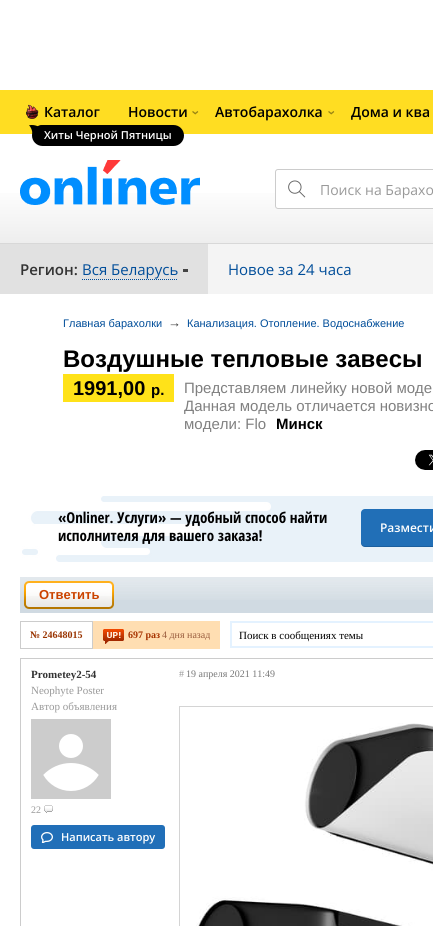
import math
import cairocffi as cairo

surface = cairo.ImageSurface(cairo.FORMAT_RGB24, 433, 926)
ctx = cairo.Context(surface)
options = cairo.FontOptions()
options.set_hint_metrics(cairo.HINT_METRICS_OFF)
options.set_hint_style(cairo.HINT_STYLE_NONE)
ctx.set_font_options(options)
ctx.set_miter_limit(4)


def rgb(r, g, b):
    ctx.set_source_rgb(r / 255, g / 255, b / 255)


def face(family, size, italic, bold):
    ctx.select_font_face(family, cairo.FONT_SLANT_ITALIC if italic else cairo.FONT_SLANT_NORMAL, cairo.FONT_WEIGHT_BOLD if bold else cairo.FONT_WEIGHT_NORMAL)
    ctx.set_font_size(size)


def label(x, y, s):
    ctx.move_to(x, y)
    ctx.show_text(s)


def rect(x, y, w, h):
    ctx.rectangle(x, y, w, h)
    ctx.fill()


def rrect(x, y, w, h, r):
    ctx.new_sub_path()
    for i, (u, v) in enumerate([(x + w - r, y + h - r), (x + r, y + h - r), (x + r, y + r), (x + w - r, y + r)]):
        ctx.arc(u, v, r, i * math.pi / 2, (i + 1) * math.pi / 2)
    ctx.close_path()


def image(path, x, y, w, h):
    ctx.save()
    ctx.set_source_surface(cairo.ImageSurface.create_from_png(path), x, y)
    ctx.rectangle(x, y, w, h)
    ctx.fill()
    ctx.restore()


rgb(255, 255, 255)
ctx.paint()
gradient = cairo.LinearGradient(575, 90, 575, 280)
gradient.add_color_stop_rgba(0, 1, 1, 1, 1)
gradient.add_color_stop_rgba(0.5, 1, 1, 1, 1)
gradient.add_color_stop_rgba(1, 0.89, 0.89, 0.89, 1)
ctx.set_source(gradient)
rect(0, 193, 433, 50)
rgb(255, 221, 34)
rect(0, 90, 433, 44)
face('Open Sans SemiBold', 14, 0, 0)
rgb(0, 0, 0)
label(44, 117, 'Каталог')
image('image0.png', 26, 104, 13, 15)
rrect(32, 125, 152, 21, 10.5)
ctx.fill()
image('image1.png', 29, 125, 13, 10)
face('Open Sans SemiBold', 11, 0, 0)
rgb(255, 255, 255)
label(44, 139, 'Хиты Черной Пятницы')
face('Open Sans SemiBold', 14, 0, 0)
rgb(0, 0, 0)
label(215, 117, 'Автобарахолка')
rgb(153, 133, 20)
ctx.save()
ctx.translate(335, 115)
ctx.rotate(-90 * math.pi / 180)
label(0, 0, '‹')
ctx.restore()
rgb(0, 0, 0)
label(128, 117, 'Новости')
rgb(153, 133, 20)
ctx.save()
ctx.translate(199, 115)
ctx.rotate(-90 * math.pi / 180)
label(0, 0, '‹')
ctx.restore()
rgb(0, 0, 0)
label(351, 117, 'Дома и ква')
image('image2.png', 20, 160, 180, 45)
rgb(255, 255, 255)
rrect(275, 169, 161, 40, 3)
ctx.fill()
image('image3.png', 288, 180, 18, 18)
rrect(275.5, 169.5, 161, 39, 2.5)
rgb(204, 204, 204)
ctx.set_line_width(1)
ctx.stroke()
face('Open Sans', 14, 0, 0)
rgb(153, 153, 153)
label(320, 195, 'Поиск на Барахо')
rgb(216, 216, 216)
rect(0, 243, 433, 1)
rgb(244, 244, 244)
rect(208, 244, 225, 50)
rgb(225, 225, 225)
rect(0, 244, 208, 50)
face('Open Sans SemiBold', 15, 0, 0)
rgb(51, 51, 51)
label(20, 275, 'Регион:')
face('Open Sans', 15, 0, 0)
rgb(0, 77, 153)
label(82, 275, 'Вся Беларусь')
ctx.new_path()
ctx.move_to(82, 279.5)
ctx.line_to(178, 279.5)
ctx.set_dash([1, 1])
ctx.stroke()
rgb(68, 68, 68)
rect(183, 269, 5, 3)
rgb(0, 77, 153)
label(228, 275, 'Новое за 24 часа')
face('Liberation Sans', 11, 0, 0)
label(63, 327, 'Главная барахолки')
face('Liberation Sans', 13, 0, 0)
rgb(51, 51, 51)
label(168, 327, '→')
face('Liberation Sans', 11, 0, 0)
rgb(0, 77, 153)
label(187, 327, 'Канализация. Отопление. Водоснабжение')
face('Liberation Sans', 24, 0, 1)
rgb(0, 0, 0)
label(63, 367, 'Воздушные тепловые завесы')
rgb(255, 226, 25)
rect(63, 374, 111, 28)
face('Liberation Sans', 20, 0, 1)
rgb(0, 0, 0)
label(73, 395, '1991,00')
face('Liberation Sans', 15, 0, 1)
label(151, 395, 'р.')
face('Liberation Sans', 15, 0, 0)
rgb(128, 128, 128)
label(184, 393, 'Представляем линейку новой моде')
label(184, 411, 'Данная модель отличается новизно')
label(184, 429, 'модели: Flo')
face('Liberation Sans', 15, 0, 1)
rgb(0, 0, 0)
label(276, 429, 'Минск')
image('image4.png', 415, 450, 18, 20)
image('image5.png', 22, 496, 411, 66)
rgb(208, 218, 226)
rect(20, 600, 413, 13)
image('image6.png', 20, 577, 413, 23)
image('image7.png', 24, 581, 7, 28)
image('image8.png', 31, 581, 83, 28)
face('Liberation Sans', 13, 0, 1)
rgb(203, 67, 0)
label(39, 599, 'Ответить')
ctx.rectangle(20.5, 621.5, 72, 27)
rgb(204, 204, 204)
ctx.set_dash([])
ctx.stroke()
face('Liberation Serif', 10, 0, 1)
rgb(153, 51, 0)
label(30, 638, '№ 24648015')
rgb(255, 222, 178)
rect(93, 621, 127, 28)
image('image9.png', 103, 629, 21, 15)
rgb(167, 51, 0)
label(128, 638, '697 раз')
face('Liberation Serif', 10, 0, 0)
rgb(153, 92, 61)
label(162, 638, '4 дня назад')
rgb(228, 242, 255)
rect(230, 621, 203, 27)
rgb(255, 255, 255)
rect(232, 623, 201, 23)
face('Liberation Serif', 11, 0, 0)
rgb(0, 0, 0)
label(239, 639, 'Поиск в сообщениях темы')
ctx.rectangle(20.5, 658.5, 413, 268)
rgb(204, 204, 204)
ctx.stroke()
face('Liberation Serif', 11, 0, 1)
rgb(51, 51, 51)
label(31, 678, 'Prometey2-54')
face('Liberation Serif', 11, 0, 0)
rgb(153, 153, 153)
label(31, 694, 'Neophyte Poster')
label(31, 710, 'Автор объявления')
image('image10.png', 31, 719, 80, 80)
face('Liberation Serif', 10, 0, 0)
label(31, 813, '22')
image('image11.png', 44, 805, 9, 8)
rgb(33, 111, 184)
rrect(31, 825, 134, 24, 3)
ctx.fill()
image('image12.png', 41, 832, 12, 11)
face('Open Sans SemiBold', 11, 0, 0)
rgb(255, 255, 255)
label(61, 841, 'Написать автору')
face('Liberation Serif', 10, 0, 0)
rgb(153, 153, 153)
label(179, 677, '#')
rgb(119, 119, 119)
label(186, 677, '19 апреля 2021 11:49')
ctx.rectangle(179.5, 706.5, 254, 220)
rgb(212, 212, 212)
ctx.stroke()
image('image13.png', 196, 723, 237, 203)
surface.write_to_png('render.png')
